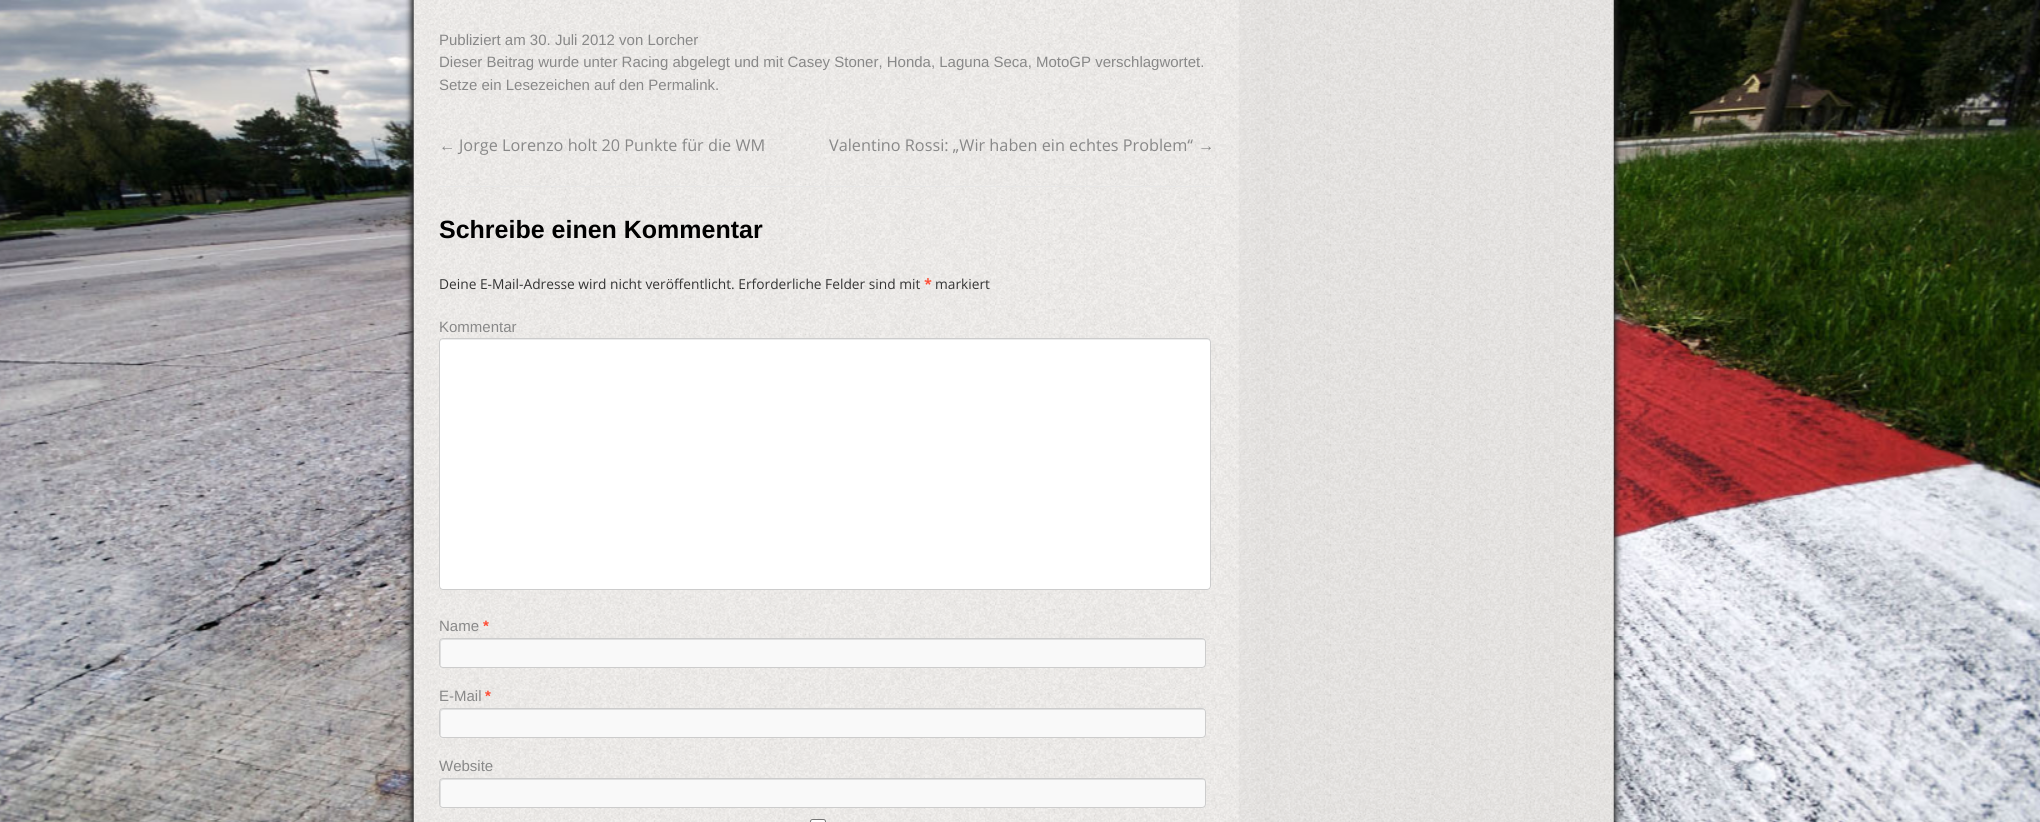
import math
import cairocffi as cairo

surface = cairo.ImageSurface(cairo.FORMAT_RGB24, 2040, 822)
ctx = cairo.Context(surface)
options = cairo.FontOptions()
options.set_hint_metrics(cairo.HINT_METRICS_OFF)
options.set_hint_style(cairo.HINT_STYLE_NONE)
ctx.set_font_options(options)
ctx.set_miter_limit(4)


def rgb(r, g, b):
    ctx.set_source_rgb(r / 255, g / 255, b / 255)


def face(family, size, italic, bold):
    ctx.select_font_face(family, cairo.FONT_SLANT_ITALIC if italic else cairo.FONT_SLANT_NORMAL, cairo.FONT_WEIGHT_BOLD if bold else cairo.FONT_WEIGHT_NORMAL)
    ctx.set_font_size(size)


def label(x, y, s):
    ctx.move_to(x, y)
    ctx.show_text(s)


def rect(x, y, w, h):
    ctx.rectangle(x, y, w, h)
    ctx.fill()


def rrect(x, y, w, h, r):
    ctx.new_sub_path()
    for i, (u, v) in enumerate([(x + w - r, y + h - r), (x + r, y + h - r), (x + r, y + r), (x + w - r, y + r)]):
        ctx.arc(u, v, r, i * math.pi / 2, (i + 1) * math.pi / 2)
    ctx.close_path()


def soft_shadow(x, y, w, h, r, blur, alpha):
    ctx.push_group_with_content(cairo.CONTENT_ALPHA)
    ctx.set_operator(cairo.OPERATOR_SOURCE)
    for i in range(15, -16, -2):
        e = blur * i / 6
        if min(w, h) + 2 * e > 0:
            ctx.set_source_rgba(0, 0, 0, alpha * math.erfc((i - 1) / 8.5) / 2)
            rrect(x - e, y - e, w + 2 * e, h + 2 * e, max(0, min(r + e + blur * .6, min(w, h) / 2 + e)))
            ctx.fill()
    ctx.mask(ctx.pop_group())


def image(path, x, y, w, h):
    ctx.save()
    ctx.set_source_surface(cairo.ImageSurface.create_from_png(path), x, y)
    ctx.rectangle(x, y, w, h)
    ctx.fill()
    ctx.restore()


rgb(255, 255, 255)
ctx.paint()
image('image0.png', 0, 0, 2040, 822)
rgb(34, 34, 34)
soft_shadow(411, -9, 1205, 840, 0, 3, 1)
image('image1.png', 413, 0, 1201, 822)
face('Liberation Sans', 15, 0, 0)
rgb(136, 136, 136)
label(439, 45, 'Publiziert am 30. Juli 2012 von Lorcher')
label(439, 67, 'Dieser Beitrag wurde unter Racing abgelegt und mit Casey Stoner, Honda, Laguna Seca, MotoGP verschlagwortet.')
label(439, 90, 'Setze ein Lesezeichen auf den Permalink.')
face('Liberation Serif', 16.25, 0, 0)
label(439, 151, '←')
face('Open Sans', 16.25, 0, 0)
label(459, 151, 'Jorge Lorenzo holt 20 Punkte für die WM')
label(829, 151, 'Valentino Rossi: „Wir haben ein echtes Problem“')
face('Liberation Serif', 16.25, 0, 0)
label(1198, 151, '→')
rgb(231, 231, 231)
rect(439, 186, 775, 1)
face('Liberation Sans', 25, 0, 1)
rgb(0, 0, 0)
label(439, 238, 'Schreibe einen Kommentar')
face('Open Sans', 13.75, 0, 0)
rgb(51, 51, 51)
label(439, 289, 'Deine E-Mail-Adresse wird nicht veröffentlicht. Erforderliche Felder sind mit')
face('Open Sans', 13.75, 0, 1)
rgb(255, 75, 51)
label(924, 289, '*')
face('Open Sans', 13.75, 0, 0)
rgb(51, 51, 51)
label(935, 289, 'markiert')
face('Liberation Sans', 15, 0, 0)
rgb(136, 136, 136)
label(439, 332, 'Kommentar')
rgb(255, 255, 255)
rrect(439, 338, 772, 252, 4)
ctx.fill()
rgb(236, 236, 236)
ctx.new_path()
ctx.move_to(442, 340)
ctx.line_to(1208, 340)
ctx.curve_to(1209, 340, 1210, 341, 1210, 342)
ctx.curve_to(1210, 340, 1209, 339, 1208, 339)
ctx.line_to(442, 339)
ctx.curve_to(441, 339, 440, 340, 440, 342)
ctx.curve_to(440, 341, 441, 340, 442, 340)
ctx.close_path()
ctx.fill()
rrect(439.5, 338.5, 771, 251, 3.5)
rgb(204, 204, 204)
ctx.set_line_width(1)
ctx.stroke()
rgb(136, 136, 136)
label(439, 631, 'Name')
face('Liberation Sans', 15, 0, 1)
rgb(255, 75, 51)
label(483, 631, '*')
rgb(249, 249, 249)
rrect(439, 638, 767, 30, 4)
ctx.fill()
rgb(224, 224, 224)
ctx.new_path()
ctx.move_to(444, 640)
ctx.line_to(1205, 640)
ctx.curve_to(1204, 639, 1203, 639, 1202, 639)
ctx.line_to(442, 639)
ctx.curve_to(441, 639, 440, 640, 440, 642)
ctx.line_to(440, 664)
ctx.curve_to(440, 664, 440, 665, 441, 666)
ctx.line_to(441, 646)
ctx.curve_to(441, 643, 440, 640, 444, 640)
ctx.close_path()
ctx.fill()
rrect(439.5, 638.5, 766, 29, 3.5)
rgb(204, 204, 204)
ctx.stroke()
face('Liberation Sans', 15, 0, 0)
rgb(136, 136, 136)
label(439, 701, 'E-Mail')
face('Liberation Sans', 15, 0, 1)
rgb(255, 75, 51)
label(485, 701, '*')
rgb(249, 249, 249)
rrect(439, 708, 767, 30, 4)
ctx.fill()
rgb(224, 224, 224)
ctx.new_path()
ctx.move_to(444, 710)
ctx.line_to(1205, 710)
ctx.curve_to(1204, 709, 1203, 709, 1202, 709)
ctx.line_to(442, 709)
ctx.curve_to(441, 709, 440, 710, 440, 712)
ctx.line_to(440, 734)
ctx.curve_to(440, 734, 440, 735, 441, 736)
ctx.line_to(441, 716)
ctx.curve_to(441, 713, 440, 710, 444, 710)
ctx.close_path()
ctx.fill()
rrect(439.5, 708.5, 766, 29, 3.5)
rgb(204, 204, 204)
ctx.stroke()
face('Liberation Sans', 15, 0, 0)
rgb(136, 136, 136)
label(439, 771, 'Website')
rgb(249, 249, 249)
rrect(439, 778, 767, 30, 4)
ctx.fill()
rgb(224, 224, 224)
ctx.new_path()
ctx.move_to(444, 780)
ctx.line_to(1205, 780)
ctx.curve_to(1204, 779, 1203, 779, 1202, 779)
ctx.line_to(442, 779)
ctx.curve_to(441, 779, 440, 780, 440, 782)
ctx.line_to(440, 804)
ctx.curve_to(440, 804, 440, 805, 441, 806)
ctx.line_to(441, 786)
ctx.curve_to(441, 783, 440, 780, 444, 780)
ctx.close_path()
ctx.fill()
rrect(439.5, 778.5, 766, 29, 3.5)
rgb(204, 204, 204)
ctx.stroke()
rgb(255, 255, 255)
rrect(810.5, 819.5, 15, 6, 2)
ctx.fill_preserve()
rgb(118, 118, 118)
ctx.stroke()
surface.write_to_png('render.png')
